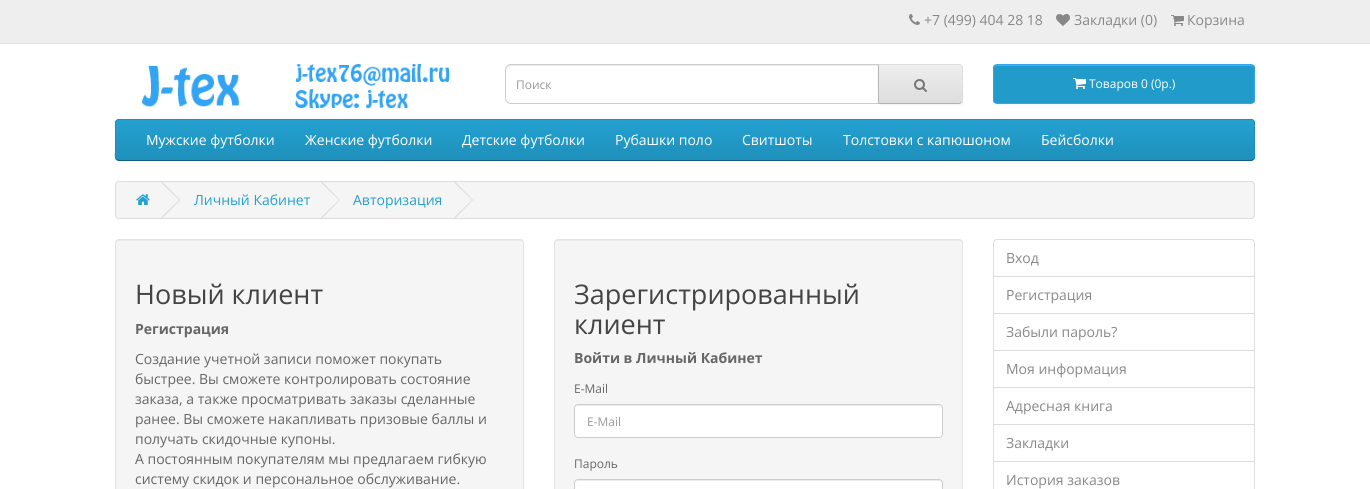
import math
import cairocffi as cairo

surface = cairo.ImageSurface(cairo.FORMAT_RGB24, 1370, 489)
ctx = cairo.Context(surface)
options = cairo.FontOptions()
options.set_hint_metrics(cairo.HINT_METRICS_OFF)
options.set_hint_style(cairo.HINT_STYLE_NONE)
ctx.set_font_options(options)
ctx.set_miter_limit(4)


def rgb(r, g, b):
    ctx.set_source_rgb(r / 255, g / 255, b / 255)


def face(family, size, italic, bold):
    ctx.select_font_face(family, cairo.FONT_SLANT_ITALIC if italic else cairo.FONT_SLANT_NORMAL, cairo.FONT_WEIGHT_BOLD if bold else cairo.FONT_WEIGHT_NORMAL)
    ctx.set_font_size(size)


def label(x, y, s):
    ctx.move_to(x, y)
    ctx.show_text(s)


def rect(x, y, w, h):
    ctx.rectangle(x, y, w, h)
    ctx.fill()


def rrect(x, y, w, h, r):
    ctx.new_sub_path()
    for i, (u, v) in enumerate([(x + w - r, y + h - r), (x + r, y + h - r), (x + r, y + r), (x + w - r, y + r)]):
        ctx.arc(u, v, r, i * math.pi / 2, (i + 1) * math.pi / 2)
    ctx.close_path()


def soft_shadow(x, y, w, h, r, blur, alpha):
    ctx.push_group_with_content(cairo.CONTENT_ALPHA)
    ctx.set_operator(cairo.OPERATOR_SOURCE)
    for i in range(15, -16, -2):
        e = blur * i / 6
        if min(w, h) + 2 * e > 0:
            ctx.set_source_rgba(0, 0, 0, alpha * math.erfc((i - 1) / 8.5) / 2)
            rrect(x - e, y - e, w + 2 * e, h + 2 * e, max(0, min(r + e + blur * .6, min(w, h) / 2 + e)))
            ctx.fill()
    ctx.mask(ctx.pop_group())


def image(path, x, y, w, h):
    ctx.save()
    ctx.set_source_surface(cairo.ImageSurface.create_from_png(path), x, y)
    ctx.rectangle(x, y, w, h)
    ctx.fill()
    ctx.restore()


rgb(255, 255, 255)
ctx.paint()
rgb(238, 238, 238)
rect(0, 0, 1370, 43)
rgb(226, 226, 226)
rect(0, 43, 1370, 1)
image('image0.png', 909, 14, 11, 11)
face('Open Sans', 14, 0, 0)
rgb(136, 136, 136)
label(924, 25, '+7 (499) 404 28 18')
image('image1.png', 1056, 14, 14, 12)
label(1074, 25, 'Закладки (0)')
image('image2.png', 1171, 15, 13, 11)
label(1187, 25, 'Корзина')
image('image3.png', 142, 64, 308, 45)
rgb(236, 236, 236)
ctx.new_path()
ctx.move_to(511, 66)
ctx.line_to(878, 66)
ctx.line_to(878, 65)
ctx.line_to(511, 65)
ctx.curve_to(508, 65, 506, 67, 506, 70)
ctx.line_to(506, 71)
ctx.curve_to(506, 68, 508, 66, 511, 66)
ctx.close_path()
ctx.fill()
ctx.new_path()
ctx.move_to(511, 64.5)
ctx.line_to(878.5, 64.5)
ctx.line_to(878.5, 103.5)
ctx.line_to(511, 103.5)
ctx.curve_to(508, 103.5, 505.5, 101, 505.5, 98)
ctx.line_to(505.5, 70)
ctx.curve_to(505.5, 67, 508, 64.5, 511, 64.5)
ctx.close_path()
rgb(204, 204, 204)
ctx.set_line_width(1)
ctx.stroke()
face('Open Sans', 12, 0, 0)
rgb(153, 153, 153)
label(516, 89, 'Поиск')
rgb(0, 0, 0)
soft_shadow(878, 65, 85, 40, 4, 1, 0.05)
rgb(231, 231, 231)
ctx.new_path()
ctx.move_to(878, 64)
ctx.line_to(959, 64)
ctx.curve_to(961, 64, 963, 66, 963, 68)
ctx.line_to(963, 100)
ctx.curve_to(963, 102, 961, 104, 959, 104)
ctx.line_to(878, 104)
ctx.close_path()
ctx.fill()
ctx.save()
ctx.new_path()
ctx.move_to(878, 64)
ctx.line_to(959, 64)
ctx.curve_to(961, 64, 963, 66, 963, 68)
ctx.line_to(963, 100)
ctx.curve_to(963, 102, 961, 104, 959, 104)
ctx.line_to(878, 104)
ctx.close_path()
ctx.clip()
gradient = cairo.LinearGradient(921, 65, 921, 103)
gradient.add_color_stop_rgba(0, 0.933, 0.933, 0.933, 1)
gradient.add_color_stop_rgba(1, 0.867, 0.867, 0.867, 1)
ctx.set_source(gradient)
rect(879, 65, 84, 38)
ctx.restore()
rgb(241, 241, 241)
ctx.new_path()
ctx.move_to(879, 66)
ctx.line_to(959, 66)
ctx.curve_to(961, 66, 962, 67, 962, 69)
ctx.line_to(962, 68)
ctx.curve_to(962, 66, 961, 65, 959, 65)
ctx.line_to(879, 65)
ctx.close_path()
ctx.fill()
rgb(221, 221, 221)
ctx.new_path()
ctx.move_to(878, 64)
ctx.line_to(879, 65)
ctx.line_to(960, 65)
ctx.line_to(961, 66)
ctx.line_to(962, 65)
ctx.line_to(959, 64)
ctx.close_path()
ctx.fill()
ctx.new_path()
ctx.move_to(963, 100)
ctx.line_to(963, 68)
ctx.curve_to(963, 67, 962.5, 66, 962, 65)
ctx.line_to(961, 66)
ctx.curve_to(962, 66, 962, 67, 962, 68)
ctx.line_to(962, 100)
ctx.curve_to(962, 101, 962, 102, 961, 102)
ctx.line_to(962, 103)
ctx.curve_to(962.5, 102, 963, 101, 963, 100)
ctx.close_path()
ctx.fill()
rgb(179, 179, 179)
ctx.new_path()
ctx.move_to(959, 104)
ctx.line_to(962, 103)
ctx.line_to(961, 102)
ctx.line_to(960, 103)
ctx.line_to(879, 103)
ctx.line_to(878, 104)
ctx.close_path()
ctx.fill()
rgb(183, 183, 183)
ctx.new_path()
ctx.move_to(878, 64)
ctx.line_to(878, 104)
ctx.line_to(879, 103)
ctx.line_to(879, 65)
ctx.close_path()
ctx.fill()
image('image4.png', 914, 79, 13, 13)
rgb(0, 0, 0)
soft_shadow(993, 65, 262, 40, 4, 1, 0.05)
ctx.save()
rrect(993, 64, 262, 40, 4)
ctx.clip()
rgb(33, 155, 201)
rect(993, 65, 262, 38)
ctx.restore()
rgb(77, 175, 212)
ctx.new_path()
ctx.move_to(997, 66)
ctx.line_to(1252, 66)
ctx.line_to(1254, 67)
ctx.line_to(1254, 69)
ctx.line_to(1254, 68)
ctx.curve_to(1254, 66, 1253, 65, 1251, 65)
ctx.line_to(997, 65)
ctx.curve_to(995, 65, 994, 66, 994, 68)
ctx.line_to(994, 69)
ctx.curve_to(994, 67, 995, 66, 997, 66)
ctx.close_path()
ctx.fill()
rrect(993.5, 64.5, 261, 39, 3.5)
rgb(51, 164, 243)
ctx.stroke()
image('image5.png', 1073, 78, 13, 11)
rgb(255, 255, 255)
label(1089, 88, 'Товаров 0 (0р.)')
rgb(34, 154, 200)
rrect(115, 119, 1140, 42, 4)
ctx.fill()
ctx.save()
rrect(115, 119, 1140, 42, 4)
ctx.clip()
gradient = cairo.LinearGradient(685, 120, 685, 160)
gradient.add_color_stop_rgba(0, 0.137, 0.631, 0.82, 1)
gradient.add_color_stop_rgba(1, 0.122, 0.565, 0.733, 1)
ctx.set_source(gradient)
rect(115, 120, 1140, 40)
ctx.restore()
ctx.new_path()
ctx.move_to(1253.5, 159.5)
ctx.line_to(1251, 160.5)
ctx.line_to(119, 160.5)
ctx.line_to(116.5, 159.5)
rgb(20, 94, 122)
ctx.stroke()
ctx.new_path()
ctx.move_to(116.5, 159.5)
ctx.curve_to(114.5, 157.5, 115.5, 153, 115.5, 151.5)
ctx.line_to(115.5, 128.5)
ctx.curve_to(115.5, 126, 114.5, 119.5, 119, 119.5)
ctx.line_to(1251, 119.5)
ctx.curve_to(1255.5, 119.5, 1254.5, 126, 1254.5, 128.5)
ctx.line_to(1254.5, 151.5)
ctx.curve_to(1254.5, 153, 1255.5, 157.5, 1253.5, 159.5)
rgb(31, 144, 187)
ctx.stroke()
face('Open Sans', 14, 0, 0)
rgb(255, 255, 255)
label(146, 145, 'Мужские футболки')
label(305, 145, 'Женские футболки')
label(462, 145, 'Детские футболки')
label(615, 145, 'Рубашки поло')
label(742, 145, 'Свитшоты')
label(843, 145, 'Толстовки с капюшоном')
label(1041, 145, 'Бейсболки')
rgb(245, 245, 245)
rrect(115.5, 181.5, 1139, 37, 3.5)
ctx.fill_preserve()
rgb(221, 221, 221)
ctx.stroke()
image('image6.png', 136, 194, 14, 11)
ctx.new_path()
ctx.move_to(161, 182.5)
ctx.line_to(162, 181.5)
ctx.line_to(180.5, 200)
ctx.line_to(179.5, 200.5)
ctx.close_path()
ctx.fill()
ctx.new_path()
ctx.move_to(161, 217.5)
ctx.line_to(179.5, 199.5)
ctx.line_to(180.5, 200)
ctx.line_to(162, 218.5)
ctx.close_path()
ctx.fill()
rgb(35, 161, 209)
label(194, 205, 'Личный Кабинет')
rgb(221, 221, 221)
ctx.new_path()
ctx.move_to(321, 182.5)
ctx.line_to(322, 181.5)
ctx.line_to(340, 200)
ctx.line_to(339.5, 200.5)
ctx.close_path()
ctx.fill()
ctx.new_path()
ctx.move_to(321, 217.5)
ctx.line_to(339.5, 199.5)
ctx.line_to(340, 200)
ctx.line_to(322, 218.5)
ctx.close_path()
ctx.fill()
rgb(35, 161, 209)
label(353, 205, 'Авторизация')
rgb(221, 221, 221)
ctx.new_path()
ctx.move_to(454, 182.5)
ctx.line_to(455, 181.5)
ctx.line_to(473, 200)
ctx.line_to(472.5, 200.5)
ctx.close_path()
ctx.fill()
ctx.new_path()
ctx.move_to(454, 217.5)
ctx.line_to(472.5, 199.5)
ctx.line_to(473, 200)
ctx.line_to(455, 218.5)
ctx.close_path()
ctx.fill()
rgb(245, 245, 245)
rrect(115, 239, 409, 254, 4)
ctx.fill()
rgb(233, 233, 233)
ctx.new_path()
ctx.move_to(119, 241)
ctx.line_to(520, 241)
ctx.curve_to(522, 241, 523, 242, 523, 244)
ctx.curve_to(523, 242, 522, 240, 520, 240)
ctx.line_to(119, 240)
ctx.curve_to(117, 240, 116, 242, 116, 244)
ctx.curve_to(116, 242, 117, 241, 119, 241)
ctx.close_path()
ctx.fill()
rrect(115.5, 239.5, 408, 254, 3.5)
rgb(227, 227, 227)
ctx.stroke()
face('Open Sans', 27, 0, 0)
rgb(68, 68, 68)
label(135, 304, 'Новый клиент')
face('Open Sans', 14, 0, 1)
rgb(102, 102, 102)
label(135, 334, 'Регистрация')
face('Open Sans', 14, 0, 0)
label(135, 364, 'Создание учетной записи поможет покупать')
label(135, 384, 'быстрее. Вы сможете контролировать состояние')
label(135, 404, 'заказа, а также просматривать заказы сделанные')
label(135, 424, 'ранее. Вы сможете накапливать призовые баллы и')
label(135, 444, 'получать скидочные купоны.')
label(135, 464, 'А постоянным покупателям мы предлагаем гибкую')
label(135, 484, 'систему скидок и персональное обслуживание.')
rgb(245, 245, 245)
rrect(554, 239, 409, 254, 4)
ctx.fill()
rgb(233, 233, 233)
ctx.new_path()
ctx.move_to(558, 241)
ctx.line_to(959, 241)
ctx.curve_to(961, 241, 962, 242, 962, 244)
ctx.curve_to(962, 242, 961, 240, 959, 240)
ctx.line_to(558, 240)
ctx.curve_to(556, 240, 555, 242, 555, 244)
ctx.curve_to(555, 242, 556, 241, 558, 241)
ctx.close_path()
ctx.fill()
rrect(554.5, 239.5, 408, 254, 3.5)
rgb(227, 227, 227)
ctx.stroke()
face('Open Sans', 27, 0, 0)
rgb(68, 68, 68)
label(574, 304, 'Зарегистрированный')
label(574, 334, 'клиент')
face('Open Sans', 14, 0, 1)
rgb(102, 102, 102)
label(574, 363, 'Войти в Личный Кабинет')
face('Open Sans', 12, 0, 0)
label(574, 393, 'E-Mail')
rgb(255, 255, 255)
rrect(574, 404, 369, 34, 4)
ctx.fill()
rgb(236, 236, 236)
ctx.new_path()
ctx.move_to(578, 406)
ctx.line_to(939, 406)
ctx.curve_to(941, 406, 942, 407, 942, 409)
ctx.curve_to(942, 407, 941, 405, 939, 405)
ctx.line_to(578, 405)
ctx.line_to(576, 406)
ctx.line_to(575, 409)
ctx.curve_to(575, 407, 576, 406, 578, 406)
ctx.close_path()
ctx.fill()
rrect(574.5, 404.5, 368, 33, 3.5)
rgb(204, 204, 204)
ctx.stroke()
rgb(153, 153, 153)
label(587, 426, 'E-Mail')
rgb(102, 102, 102)
label(574, 468, 'Пароль')
rgb(255, 255, 255)
rrect(574, 479, 369, 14, 4)
ctx.fill()
rgb(236, 236, 236)
ctx.new_path()
ctx.move_to(578, 481)
ctx.line_to(939, 481)
ctx.curve_to(941, 481, 942, 482, 942, 484)
ctx.curve_to(942, 482, 941, 480, 939, 480)
ctx.line_to(578, 480)
ctx.line_to(576, 481)
ctx.line_to(575, 484)
ctx.curve_to(575, 482, 576, 481, 578, 481)
ctx.close_path()
ctx.fill()
rrect(574.5, 479.5, 368, 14, 3.5)
rgb(204, 204, 204)
ctx.stroke()
ctx.new_path()
ctx.move_to(997, 239.5)
ctx.line_to(1251, 239.5)
ctx.curve_to(1253, 239.5, 1254.5, 241, 1254.5, 243)
ctx.line_to(1254.5, 276.5)
ctx.line_to(993.5, 276.5)
ctx.line_to(993.5, 243)
ctx.curve_to(993.5, 241, 995, 239.5, 997, 239.5)
ctx.close_path()
rgb(221, 221, 221)
ctx.stroke()
face('Open Sans', 14, 0, 0)
rgb(136, 136, 136)
label(1006, 263, 'Вход')
ctx.rectangle(993.5, 276.5, 261, 37)
rgb(221, 221, 221)
ctx.stroke()
rgb(136, 136, 136)
label(1006, 300, 'Регистрация')
ctx.rectangle(993.5, 313.5, 261, 37)
rgb(221, 221, 221)
ctx.stroke()
rgb(136, 136, 136)
label(1006, 337, 'Забыли пароль?')
ctx.rectangle(993.5, 350.5, 261, 37)
rgb(221, 221, 221)
ctx.stroke()
rgb(136, 136, 136)
label(1006, 374, 'Моя информация')
ctx.rectangle(993.5, 387.5, 261, 37)
rgb(221, 221, 221)
ctx.stroke()
rgb(136, 136, 136)
label(1006, 411, 'Адресная книга')
ctx.rectangle(993.5, 424.5, 261, 37)
rgb(221, 221, 221)
ctx.stroke()
rgb(136, 136, 136)
label(1006, 448, 'Закладки')
ctx.rectangle(993.5, 461.5, 261, 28)
rgb(221, 221, 221)
ctx.stroke()
rgb(136, 136, 136)
label(1006, 485, 'История заказов')
surface.write_to_png('render.png')
